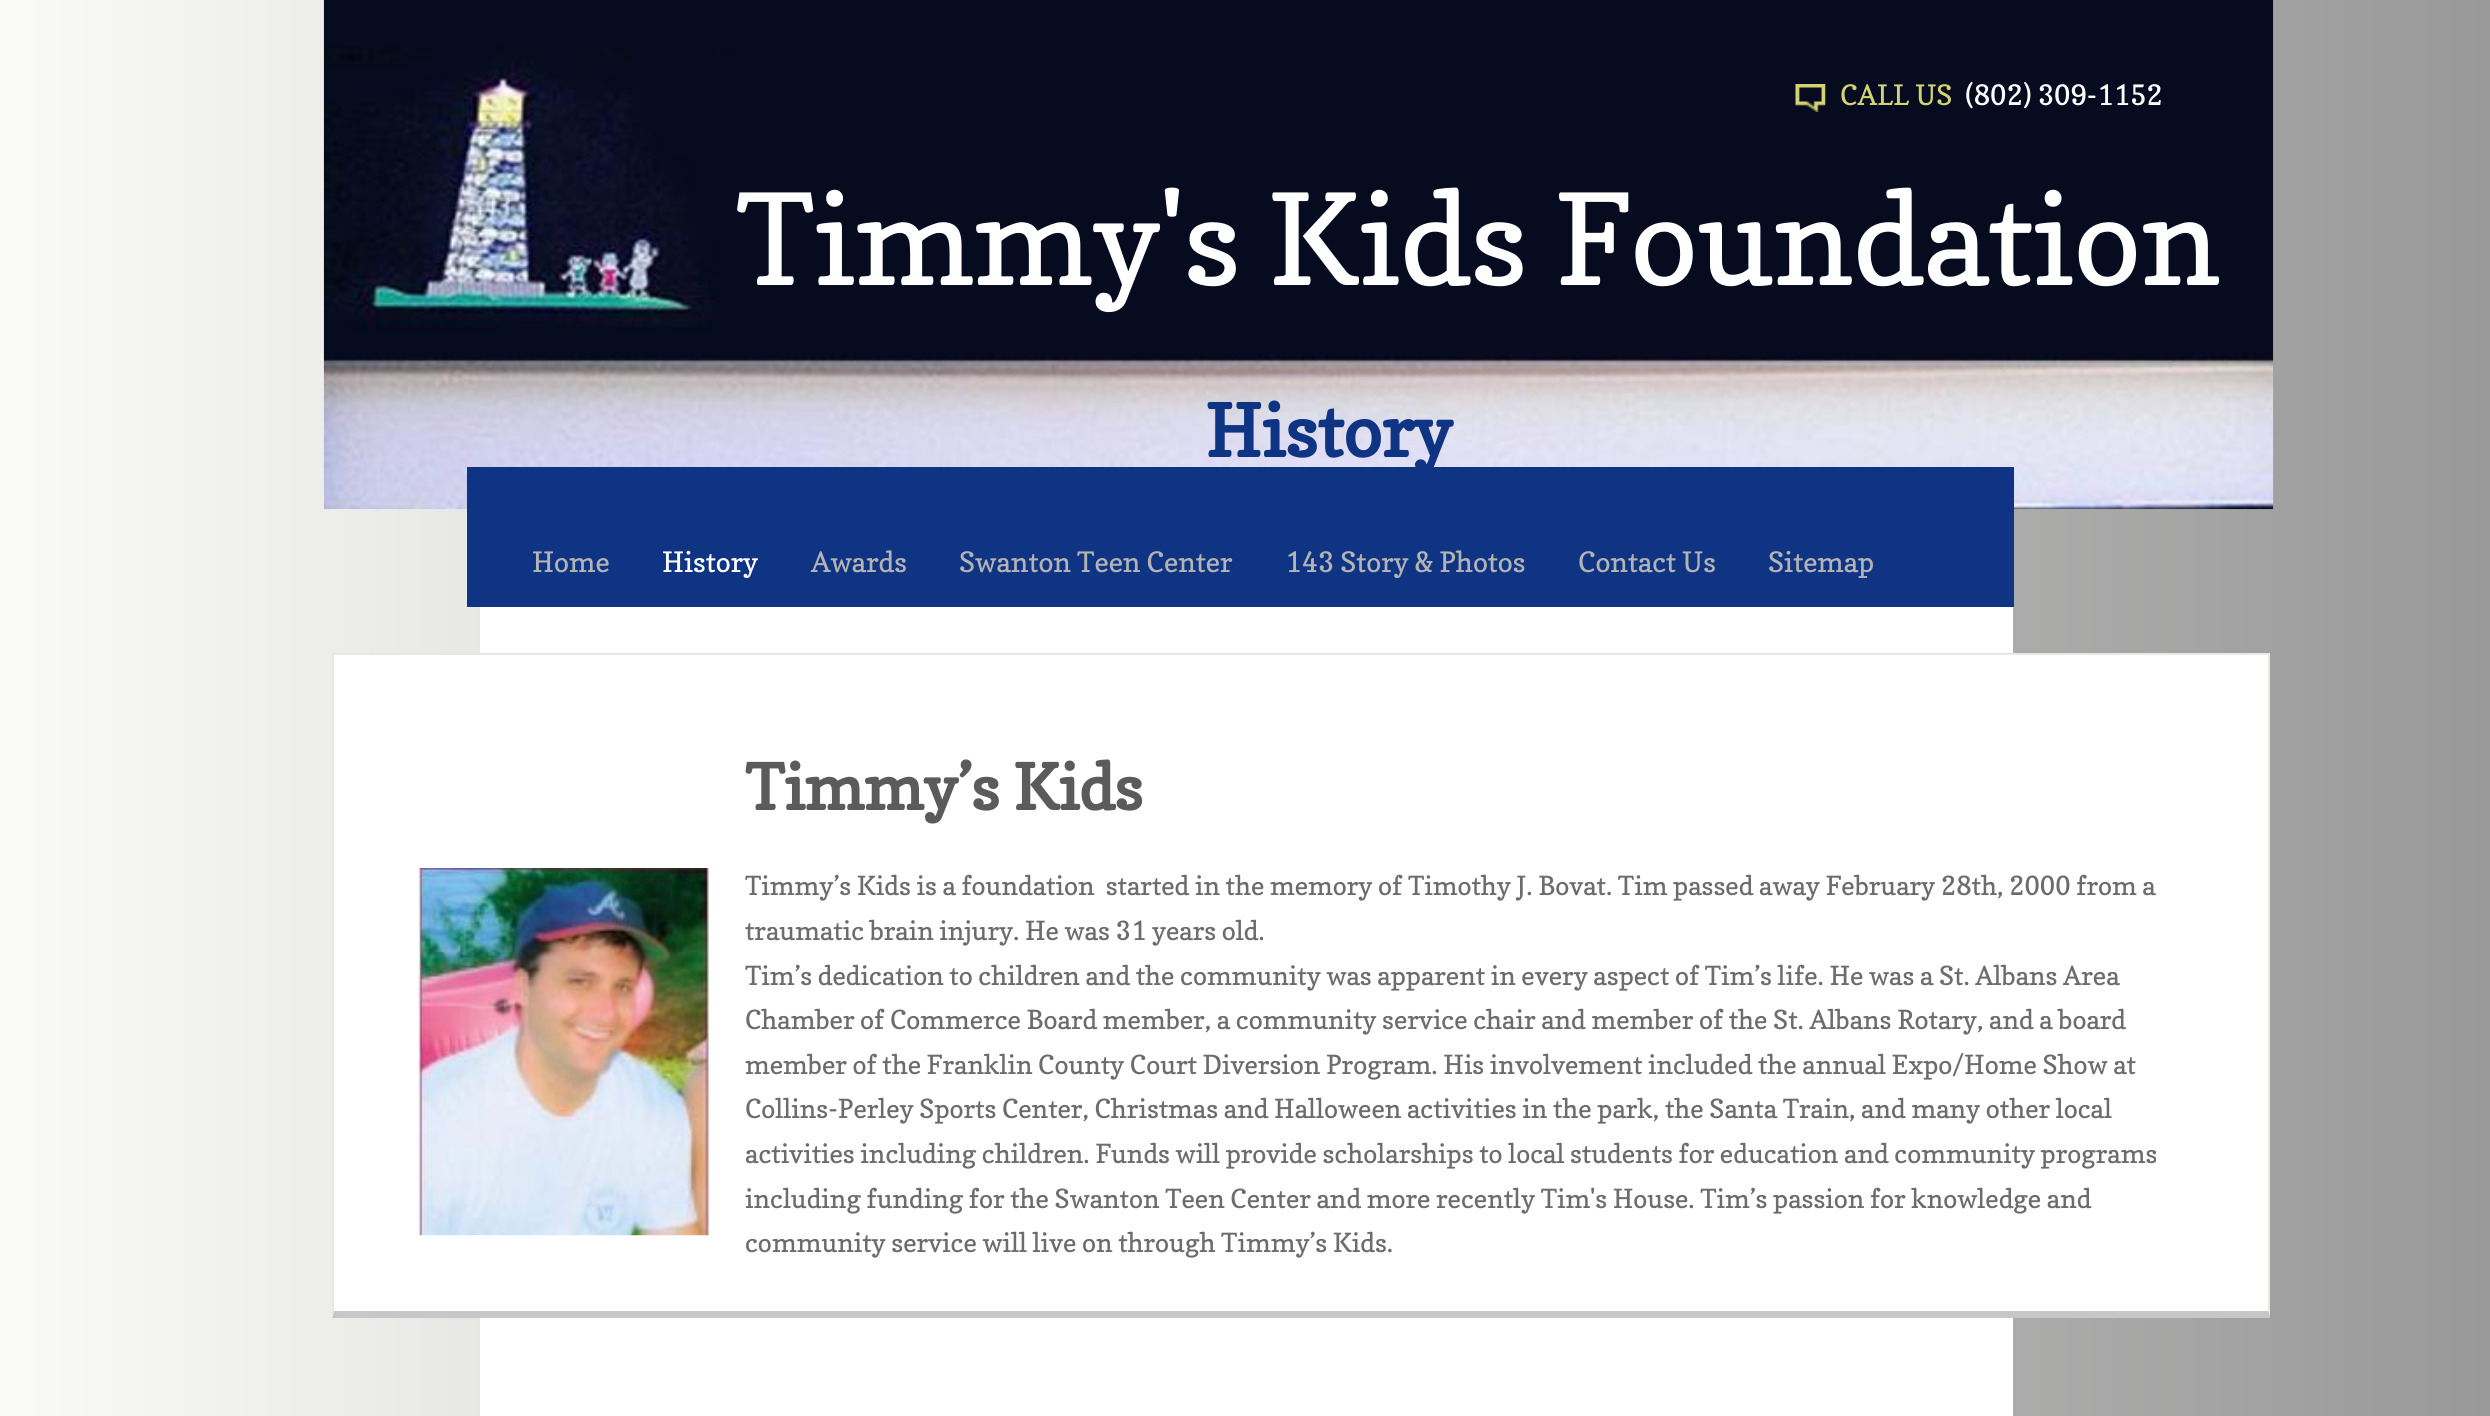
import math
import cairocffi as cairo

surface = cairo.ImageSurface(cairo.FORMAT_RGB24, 2490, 1416)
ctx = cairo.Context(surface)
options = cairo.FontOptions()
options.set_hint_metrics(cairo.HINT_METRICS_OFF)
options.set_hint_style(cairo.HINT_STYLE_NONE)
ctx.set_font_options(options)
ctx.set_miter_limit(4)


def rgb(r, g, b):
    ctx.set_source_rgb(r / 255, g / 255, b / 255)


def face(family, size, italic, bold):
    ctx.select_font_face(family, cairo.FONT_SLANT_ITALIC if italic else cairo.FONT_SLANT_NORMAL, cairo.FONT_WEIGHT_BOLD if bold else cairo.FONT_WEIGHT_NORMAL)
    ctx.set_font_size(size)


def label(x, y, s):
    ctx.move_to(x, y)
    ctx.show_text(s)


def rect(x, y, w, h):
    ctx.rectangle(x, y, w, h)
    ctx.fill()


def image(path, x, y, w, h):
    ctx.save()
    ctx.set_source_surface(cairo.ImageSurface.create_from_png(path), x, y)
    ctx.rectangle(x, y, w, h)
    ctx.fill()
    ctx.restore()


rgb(255, 255, 255)
ctx.paint()
gradient = cairo.LinearGradient(0, 1027, 2490, 1027)
gradient.add_color_stop_rgba(0, 0.98, 0.98, 0.969, 1)
gradient.add_color_stop_rgba(1, 0.6, 0.6, 0.6, 1)
ctx.set_source(gradient)
rect(0, 0, 2490, 1416)
rgb(255, 255, 255)
rect(480, 607, 1533, 809)
image('image0.png', 323, 0, 1951, 510)
image('image1.png', 1795, 84, 31, 28)
face('Copse', 28, 0, 0)
rgb(212, 211, 115)
label(1840, 105, 'CALL US')
rgb(255, 255, 255)
label(1965, 105, '(802) 309-1152')
face('Copse', 126, 0, 0)
label(736, 285, 'Timmy\'s Kids Foundation')
rgb(16, 52, 132)
rect(467, 467, 1547, 140)
face('Copse', 72, 0, 1)
label(1205, 457, 'History')
face('Copse', 28, 0, 0)
rgb(179, 179, 179)
label(532, 572, 'Home')
rgb(255, 255, 255)
label(662, 572, 'History')
rgb(179, 179, 179)
label(811, 572, 'Awards')
label(959, 572, 'Swanton Teen Center')
label(1285, 572, '143 Story & Photos')
label(1578, 572, 'Contact Us')
label(1768, 572, 'Sitemap')
rgb(255, 255, 255)
rect(334, 655, 1934, 656)
rgb(232, 232, 227)
rect(333, 653, 1937, 2)
ctx.new_path()
ctx.move_to(2270, 653)
ctx.line_to(2270, 1318)
ctx.line_to(2268, 1311)
ctx.line_to(2268, 654)
ctx.close_path()
ctx.fill()
rgb(199, 199, 199)
ctx.new_path()
ctx.move_to(2270, 1318)
ctx.line_to(332, 1318)
ctx.line_to(334, 1311)
ctx.line_to(2268, 1311)
ctx.close_path()
ctx.fill()
rgb(232, 232, 227)
ctx.new_path()
ctx.move_to(332, 1318)
ctx.line_to(332, 653)
ctx.line_to(334, 654)
ctx.line_to(334, 1311)
ctx.close_path()
ctx.fill()
image('image2.png', 418, 868, 291, 368)
face('Copse', 63, 0, 1)
rgb(91, 91, 91)
label(745, 810, 'Timmy’s Kids')
face('Copse', 26.25, 0, 0)
rgb(108, 108, 108)
label(745, 895, 'Timmy’s Kids is a foundation  started in the memory of Timothy J. Bovat. Tim passed away February 28th, 2000 from a')
label(745, 940, 'traumatic brain injury. He was 31 years old.')
label(745, 985, 'Tim’s dedication to children and the community was apparent in every aspect of Tim’s life. He was a St. Albans Area')
label(745, 1029, 'Chamber of Commerce Board member, a community service chair and member of the St. Albans Rotary, and a board')
label(745, 1074, 'member of the Franklin County Court Diversion Program. His involvement included the annual Expo/Home Show at')
label(745, 1118, 'Collins-Perley Sports Center, Christmas and Halloween activities in the park, the Santa Train, and many other local')
label(745, 1163, 'activities including children. Funds will provide scholarships to local students for education and community programs')
label(745, 1208, 'including funding for the Swanton Teen Center and more recently Tim\'s House. Tim’s passion for knowledge and')
label(745, 1252, 'community service will live on through Timmy’s Kids.')
surface.write_to_png('render.png')
